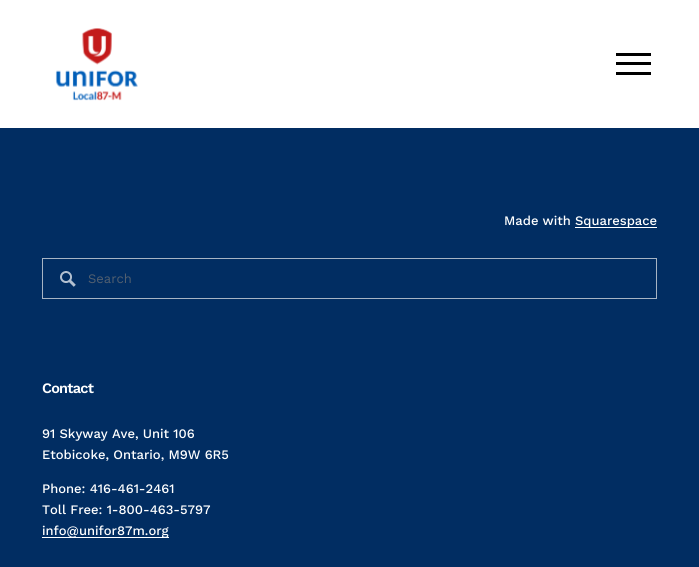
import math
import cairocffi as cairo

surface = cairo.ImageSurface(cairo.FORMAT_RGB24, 699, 567)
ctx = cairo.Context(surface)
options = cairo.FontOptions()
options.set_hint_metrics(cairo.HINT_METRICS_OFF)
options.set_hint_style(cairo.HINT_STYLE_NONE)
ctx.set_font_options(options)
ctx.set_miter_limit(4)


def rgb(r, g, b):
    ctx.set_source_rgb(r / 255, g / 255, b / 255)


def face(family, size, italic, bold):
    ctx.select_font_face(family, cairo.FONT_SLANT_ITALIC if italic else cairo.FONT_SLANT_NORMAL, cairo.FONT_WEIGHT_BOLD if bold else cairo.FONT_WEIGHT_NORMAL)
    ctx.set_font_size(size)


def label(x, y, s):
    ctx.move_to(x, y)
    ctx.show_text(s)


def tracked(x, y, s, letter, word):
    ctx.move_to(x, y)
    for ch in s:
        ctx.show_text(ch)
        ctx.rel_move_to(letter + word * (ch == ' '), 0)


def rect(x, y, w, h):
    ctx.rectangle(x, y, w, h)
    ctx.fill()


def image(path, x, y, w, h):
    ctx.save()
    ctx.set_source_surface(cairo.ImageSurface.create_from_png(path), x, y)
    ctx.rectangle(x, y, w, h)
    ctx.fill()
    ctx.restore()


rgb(1, 45, 98)
ctx.paint()
rgb(255, 255, 255)
rect(0, 0, 699, 128)
image('image0.png', 55, 28, 83, 73)
rgb(0, 0, 0)
rect(616, 53, 35, 3)
rect(616, 62, 35, 3)
rect(616, 72, 35, 3)
face('Work Sans Medium', 13, 0, 0)
rgb(255, 255, 255)
label(504, 225, 'Made with')
rect(575, 227, 82, 1)
label(575, 225, 'Squarespace')
image('image1.png', 60, 271, 16, 16)
ctx.rectangle(42.5, 258.5, 614, 40)
rgb(167, 180, 196)
ctx.set_line_width(1)
ctx.stroke()
face('Work Sans', 13, 0, 0)
rgb(82, 95, 111)
label(88, 283, 'Search')
face('Work Sans SemiBold', 14.5, 0, 0)
rgb(255, 255, 255)
tracked(42, 393, 'Contact', -0.75, 0)
face('Work Sans Medium', 13, 0, 0)
label(42, 438, '91 Skyway Ave, Unit 106')
label(42, 459, 'Etobicoke, Ontario, M9W 6R5')
label(42, 493, 'Phone: 416-461-2461')
label(42, 514, 'Toll Free: 1-800-463-5797')
rect(42, 537, 127, 1)
label(42, 535, 'info@unifor87m.org')
surface.write_to_png('render.png')
